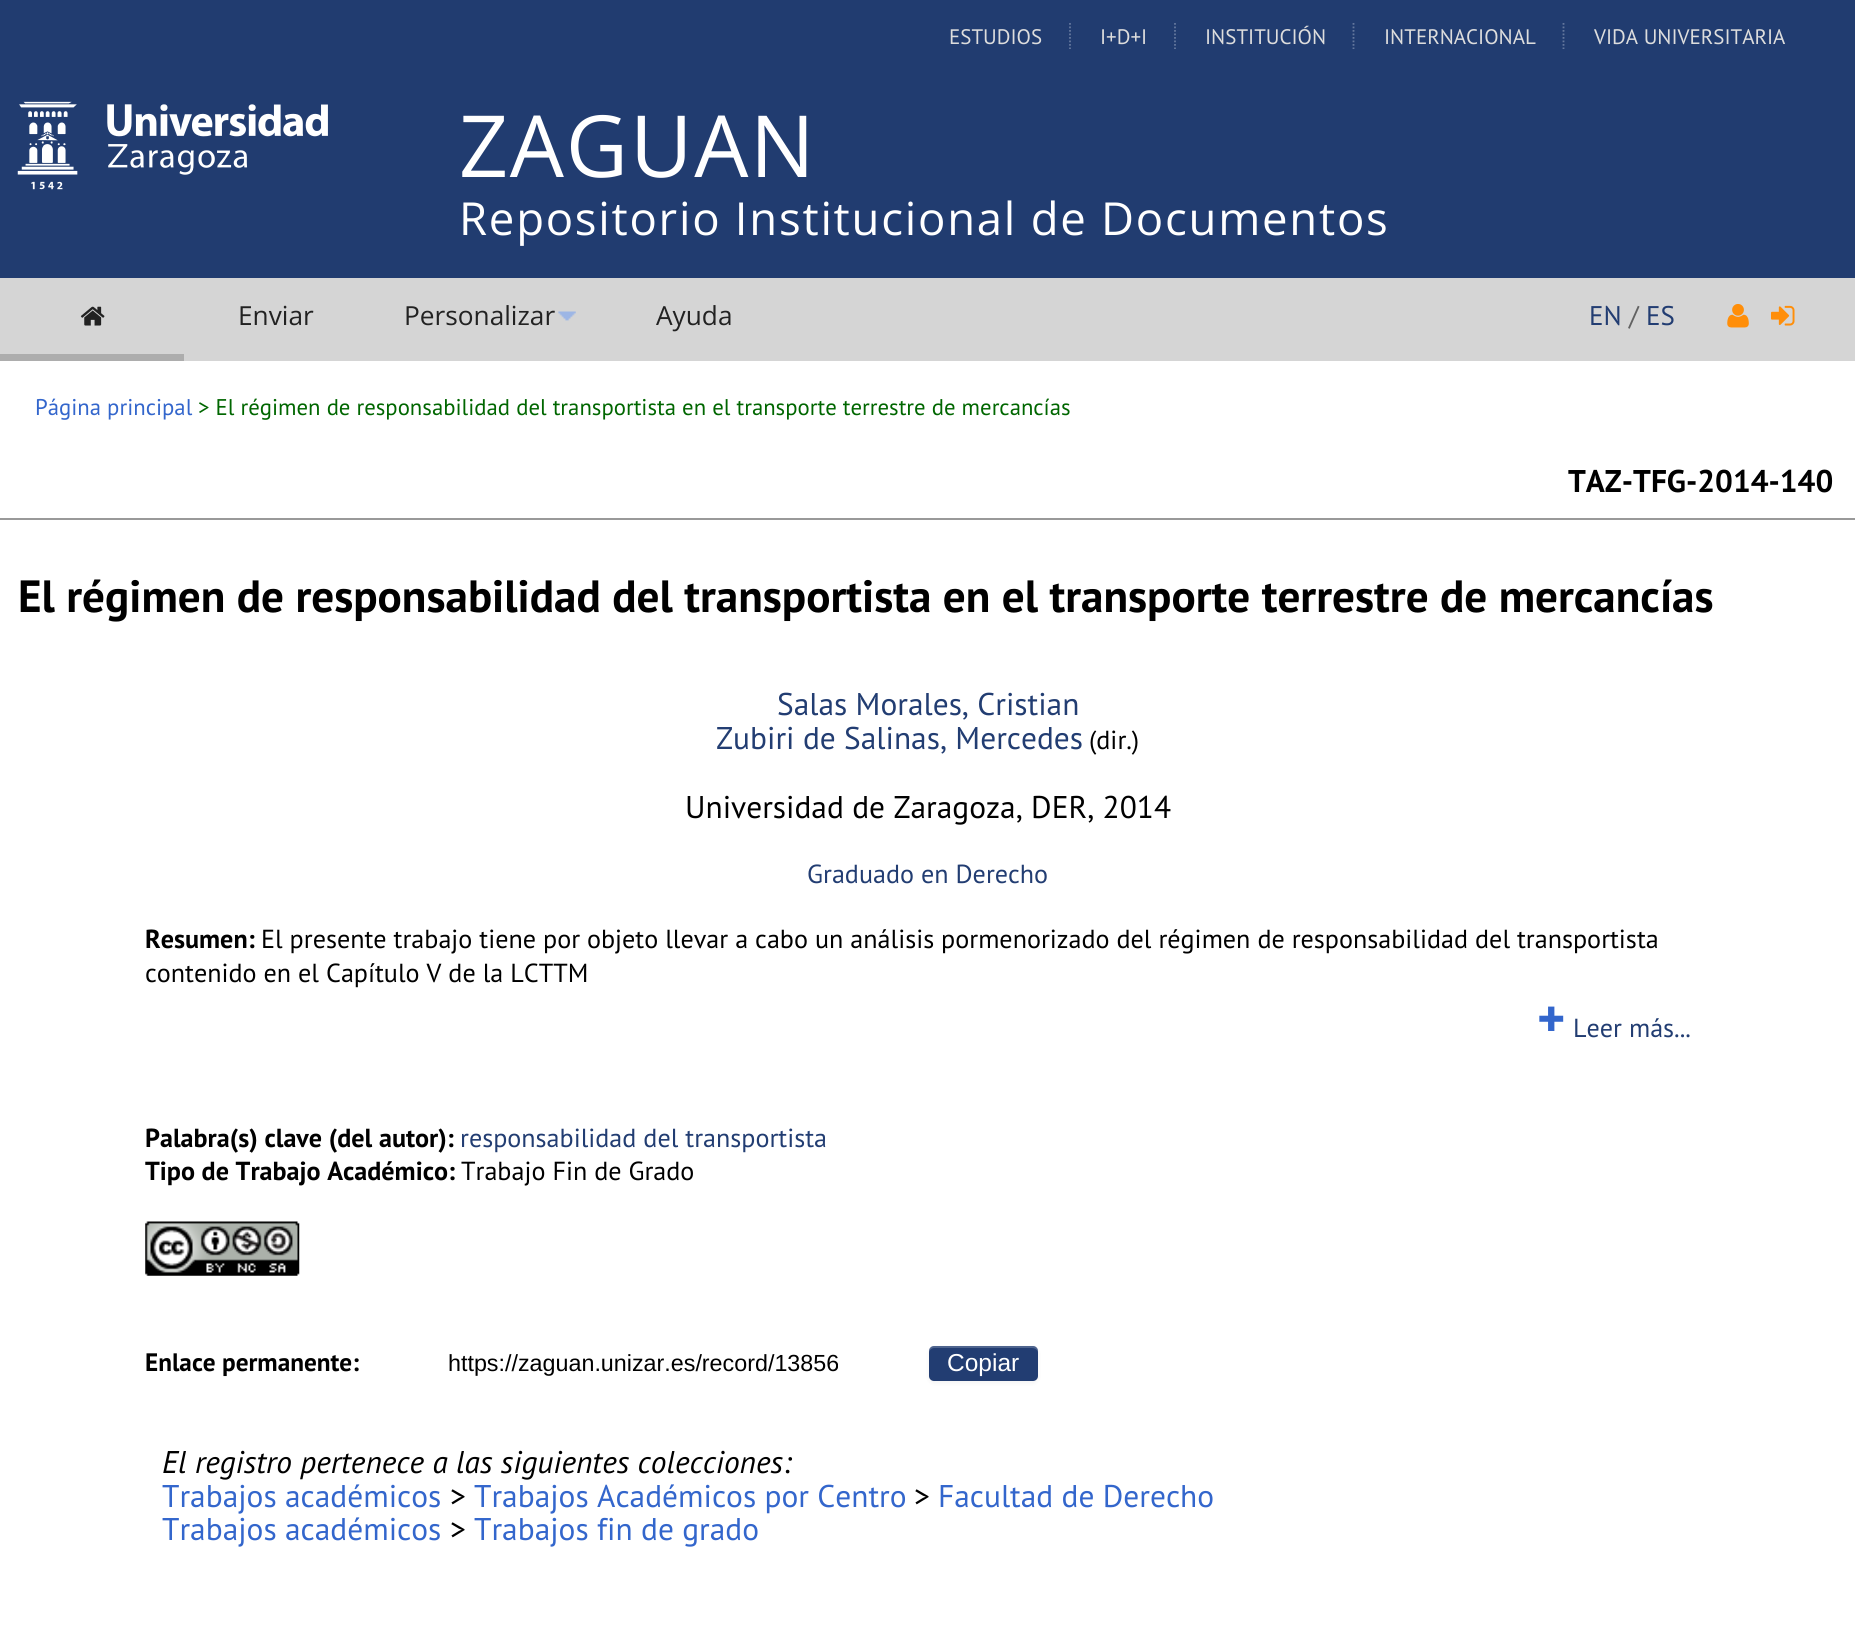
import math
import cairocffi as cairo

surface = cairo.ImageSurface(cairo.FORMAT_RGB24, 1855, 1628)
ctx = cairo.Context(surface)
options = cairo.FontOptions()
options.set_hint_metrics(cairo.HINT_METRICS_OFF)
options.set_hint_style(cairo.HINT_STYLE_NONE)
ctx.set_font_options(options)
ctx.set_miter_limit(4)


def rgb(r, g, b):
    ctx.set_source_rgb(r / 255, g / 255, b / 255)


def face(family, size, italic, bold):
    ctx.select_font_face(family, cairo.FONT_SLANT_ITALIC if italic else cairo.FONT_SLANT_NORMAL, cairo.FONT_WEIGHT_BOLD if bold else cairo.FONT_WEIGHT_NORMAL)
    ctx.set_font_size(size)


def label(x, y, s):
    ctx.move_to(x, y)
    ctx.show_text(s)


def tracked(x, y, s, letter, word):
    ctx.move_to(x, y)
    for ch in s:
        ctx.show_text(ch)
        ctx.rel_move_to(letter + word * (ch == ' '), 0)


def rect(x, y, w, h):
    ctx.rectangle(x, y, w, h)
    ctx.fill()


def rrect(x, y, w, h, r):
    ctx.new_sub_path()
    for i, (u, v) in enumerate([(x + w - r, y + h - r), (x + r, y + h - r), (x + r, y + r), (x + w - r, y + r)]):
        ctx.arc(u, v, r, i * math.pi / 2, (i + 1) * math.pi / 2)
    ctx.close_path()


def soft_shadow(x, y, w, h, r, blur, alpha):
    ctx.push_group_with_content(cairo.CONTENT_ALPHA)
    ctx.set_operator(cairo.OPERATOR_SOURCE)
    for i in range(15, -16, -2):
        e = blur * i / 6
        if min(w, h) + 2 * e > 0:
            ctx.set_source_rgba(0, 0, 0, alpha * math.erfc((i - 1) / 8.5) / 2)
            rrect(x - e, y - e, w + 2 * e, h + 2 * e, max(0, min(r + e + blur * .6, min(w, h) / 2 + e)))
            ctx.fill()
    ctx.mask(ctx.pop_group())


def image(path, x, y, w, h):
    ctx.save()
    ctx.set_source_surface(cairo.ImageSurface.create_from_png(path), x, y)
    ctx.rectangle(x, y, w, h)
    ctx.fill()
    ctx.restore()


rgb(255, 255, 255)
ctx.paint()
rgb(33, 60, 112)
rect(0, 0, 1855, 278)
face('PT Sans', 21, 0, 0)
rgb(221, 221, 221)
label(949, 44, 'ESTUDIOS')
ctx.new_path()
ctx.move_to(1070, 23)
ctx.line_to(1070, 49)
rgb(100, 119, 157)
ctx.set_line_width(1.8)
ctx.set_dash([1.75, 1.75])
ctx.stroke()
rgb(221, 221, 221)
label(1100, 44, 'I+D+I')
ctx.new_path()
ctx.move_to(1175, 23)
ctx.line_to(1175, 49)
rgb(100, 119, 157)
ctx.stroke()
rgb(221, 221, 221)
label(1205, 44, 'INSTITUCIÓN')
ctx.new_path()
ctx.move_to(1353.5, 23)
ctx.line_to(1353.5, 49)
rgb(100, 119, 157)
ctx.stroke()
rgb(221, 221, 221)
label(1384, 44, 'INTERNACIONAL')
ctx.new_path()
ctx.move_to(1563.5, 23)
ctx.line_to(1563.5, 49)
rgb(100, 119, 157)
ctx.stroke()
rgb(221, 221, 221)
label(1594, 44, 'VIDA UNIVERSITARIA')
image('image0.png', 17, 101, 311, 89)
face('Open Sans', 85.75, 0, 0)
rgb(255, 255, 255)
tracked(459, 177, 'ZAGUAN', 1.75, 0)
face('Open Sans', 45.5, 0, 0)
tracked(459, 235, 'Repositorio Institucional de Documentos', 1.75, 0)
rgb(213, 213, 213)
rect(0, 278, 1855, 83)
rgb(173, 173, 173)
rect(0, 354, 184, 7)
image('image1.png', 80, 306, 25, 20)
face('Open Sans', 26.25, 0, 0)
rgb(34, 34, 34)
label(238, 325, 'Enviar')
label(404, 325, 'Personalizar')
image('image2.png', 558, 311, 18, 10)
label(656, 325, 'Ayuda')
face('PT Sans', 27, 0, 0)
rgb(34, 61, 114)
label(1589, 325, 'EN')
rgb(98, 98, 98)
label(1629, 325, '/')
rgb(34, 61, 114)
label(1646, 325, 'ES')
image('image3.png', 1727, 304, 22, 24)
image('image4.png', 1771, 305, 24, 21)
face('PT Sans', 22.75, 0, 0)
rgb(51, 102, 204)
label(35, 415, 'Página principal')
rgb(0, 102, 0)
label(198, 415, '> El régimen de responsabilidad del transportista en el transporte terrestre de mercancías')
face('PT Sans', 31.4, 0, 1)
rgb(0, 0, 0)
label(1568, 492, 'TAZ-TFG-2014-140')
rgb(153, 153, 153)
rect(0, 518, 1855, 2)
face('PT Sans', 45.15, 0, 1)
rgb(0, 0, 0)
label(18, 612, 'El régimen de responsabilidad del transportista en el transporte terrestre de mercancías')
face('PT Sans', 31.4, 0, 0)
rgb(34, 61, 114)
label(777, 715, 'Salas Morales, Cristian')
label(716, 749, 'Zubiri de Salinas, Mercedes')
face('PT Sans', 26.13, 0, 0)
rgb(0, 0, 0)
label(1089, 749, '(dir.)')
face('PT Sans', 31.4, 0, 0)
label(685, 818, 'Universidad de Zaragoza, DER, 2014')
face('PT Sans', 26.13, 0, 0)
rgb(34, 61, 114)
label(807, 883, 'Graduado en Derecho')
face('PT Sans', 26.13, 0, 1)
rgb(0, 0, 0)
label(145, 948, 'Resumen:')
face('PT Sans', 26.13, 0, 0)
label(261, 948, 'El presente trabajo tiene por objeto llevar a cabo un análisis pormenorizado del régimen de responsabilidad del transportista')
label(145, 982, 'contenido en el Capítulo V de la LCTTM')
face('PT Sans', 54, 0, 1)
rgb(51, 102, 204)
label(1537, 1037, '+')
face('PT Sans', 26.13, 0, 0)
rgb(34, 61, 114)
label(1573, 1037, 'Leer más...')
face('PT Sans', 26.13, 0, 1)
rgb(0, 0, 0)
label(145, 1147, 'Palabra(s) clave (del autor):')
face('PT Sans', 26.13, 0, 0)
rgb(34, 61, 114)
label(460, 1147, 'responsabilidad del transportista')
face('PT Sans', 26.13, 0, 1)
rgb(0, 0, 0)
label(145, 1180, 'Tipo de Trabajo Académico:')
face('PT Sans', 26.13, 0, 0)
label(461, 1180, 'Trabajo Fin de Grado')
image('image5.png', 145, 1221, 155, 55)
face('PT Sans', 25.25, 0, 1)
label(145, 1371, 'Enlace permanente:')
face('Liberation Sans', 23.3, 0, 0)
label(448, 1371, 'https://zaguan.unizar.es/record/13856')
rgb(0, 0, 0)
soft_shadow(929, 1348, 109, 35, 5, 2, 0.05)
rgb(34, 61, 114)
rrect(929, 1346, 109, 35, 5)
ctx.fill()
ctx.set_source_rgba(1, 1, 1, 0.2)
ctx.new_path()
ctx.move_to(934, 1348)
ctx.line_to(1032, 1348)
ctx.curve_to(1035, 1348, 1038, 1350, 1038, 1353)
ctx.line_to(1038, 1351)
ctx.curve_to(1038, 1348, 1036, 1346, 1033, 1346)
ctx.line_to(934, 1346)
ctx.curve_to(931, 1346, 929, 1348, 929, 1351)
ctx.line_to(929, 1353)
ctx.curve_to(929, 1350, 932, 1348, 934, 1348)
ctx.close_path()
ctx.fill()
face('Liberation Sans', 24.5, 0, 0)
rgb(255, 255, 255)
label(947, 1371, 'Copiar')
face('PT Sans', 31.4, 1, 0)
rgb(0, 0, 0)
label(162, 1473, 'El registro pertenece a las siguientes colecciones:')
face('PT Sans', 31.4, 0, 0)
rgb(51, 102, 204)
label(162, 1507, 'Trabajos académicos')
rgb(0, 0, 0)
label(450, 1507, '>')
rgb(51, 102, 204)
label(474, 1507, 'Trabajos Académicos por Centro')
rgb(0, 0, 0)
label(914, 1507, '>')
rgb(51, 102, 204)
label(938, 1507, 'Facultad de Derecho')
label(162, 1540, 'Trabajos académicos')
rgb(0, 0, 0)
label(450, 1540, '>')
rgb(51, 102, 204)
label(474, 1540, 'Trabajos fin de grado')
surface.write_to_png('render.png')
